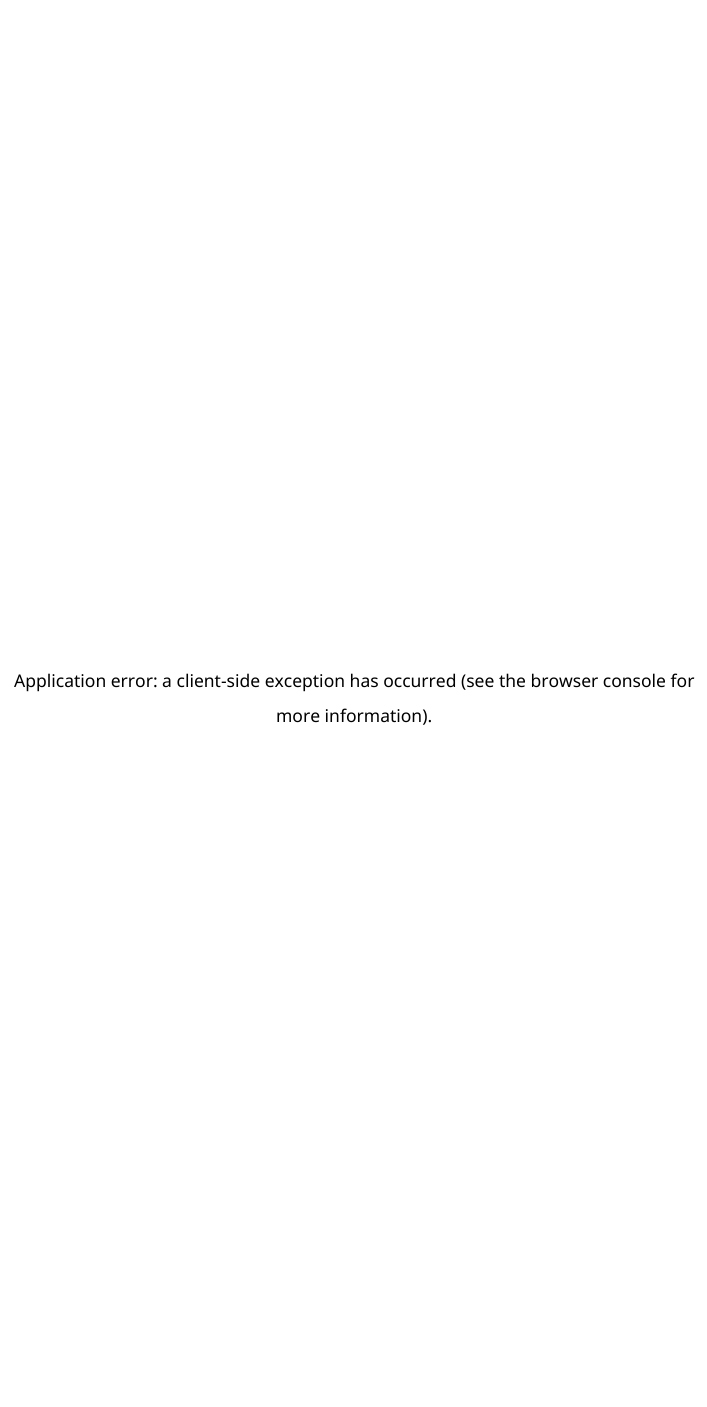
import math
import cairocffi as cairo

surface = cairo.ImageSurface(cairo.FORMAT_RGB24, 707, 1407)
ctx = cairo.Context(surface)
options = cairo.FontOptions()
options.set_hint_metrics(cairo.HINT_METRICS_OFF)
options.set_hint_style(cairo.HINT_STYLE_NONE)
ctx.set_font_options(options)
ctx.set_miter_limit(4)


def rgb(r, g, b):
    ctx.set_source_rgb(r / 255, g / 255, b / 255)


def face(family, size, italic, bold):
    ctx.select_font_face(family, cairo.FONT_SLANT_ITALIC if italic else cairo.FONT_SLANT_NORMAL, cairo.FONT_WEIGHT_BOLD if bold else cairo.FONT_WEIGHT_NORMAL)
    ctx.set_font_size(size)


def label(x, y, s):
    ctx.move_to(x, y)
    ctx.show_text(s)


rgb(255, 255, 255)
ctx.paint()
face('Noto Sans', 17.5, 0, 0)
rgb(0, 0, 0)
label(14, 687, 'Application error: a client-side exception has occurred (see the browser console for')
label(276, 722, 'more information).')
surface.write_to_png('render.png')
